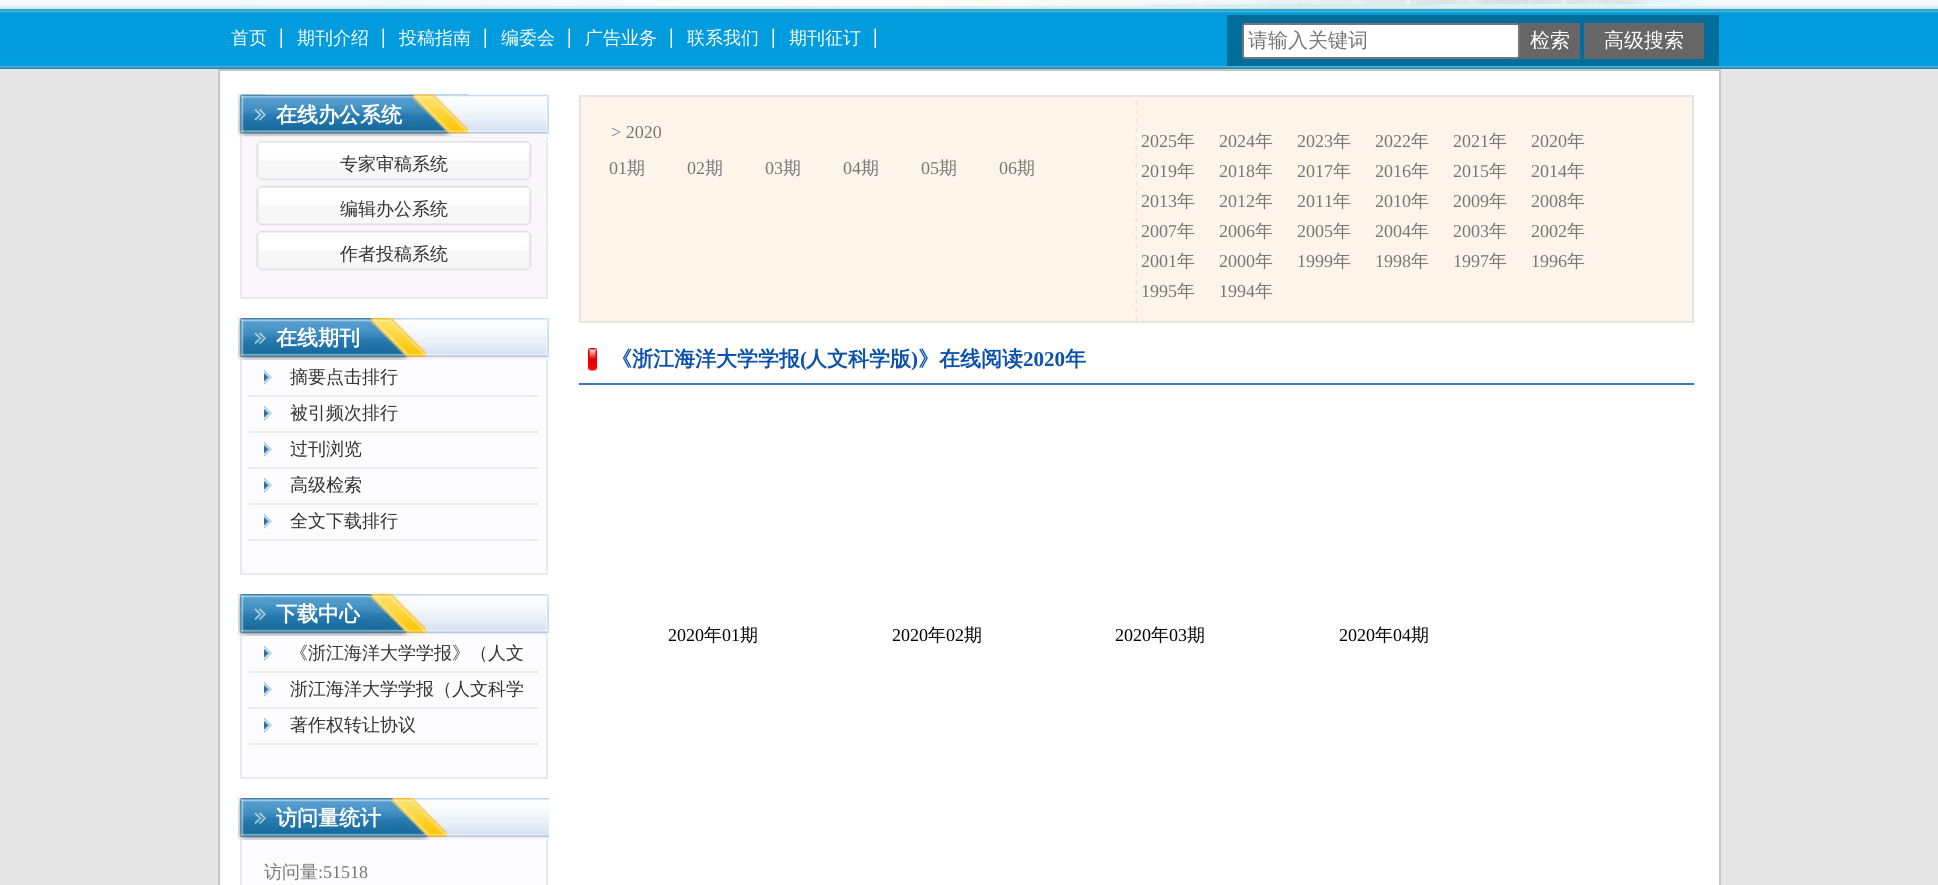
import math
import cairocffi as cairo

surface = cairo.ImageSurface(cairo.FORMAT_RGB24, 1938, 885)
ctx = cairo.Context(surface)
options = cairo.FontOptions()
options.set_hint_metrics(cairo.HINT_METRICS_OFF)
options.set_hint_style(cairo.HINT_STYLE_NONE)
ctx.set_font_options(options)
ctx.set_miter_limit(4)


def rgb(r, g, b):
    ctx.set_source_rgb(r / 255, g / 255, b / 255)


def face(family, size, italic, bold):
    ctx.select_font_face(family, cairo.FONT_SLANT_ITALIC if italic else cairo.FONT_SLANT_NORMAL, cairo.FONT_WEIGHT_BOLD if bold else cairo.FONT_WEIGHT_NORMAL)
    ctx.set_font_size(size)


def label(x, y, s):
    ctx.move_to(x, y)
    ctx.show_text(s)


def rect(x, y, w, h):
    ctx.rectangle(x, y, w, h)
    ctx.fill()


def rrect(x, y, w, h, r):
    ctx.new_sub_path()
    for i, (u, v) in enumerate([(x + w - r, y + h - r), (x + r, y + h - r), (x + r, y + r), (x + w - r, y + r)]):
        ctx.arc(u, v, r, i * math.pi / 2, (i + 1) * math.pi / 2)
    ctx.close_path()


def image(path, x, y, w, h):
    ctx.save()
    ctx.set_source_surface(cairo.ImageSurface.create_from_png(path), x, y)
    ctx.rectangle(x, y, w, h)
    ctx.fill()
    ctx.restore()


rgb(230, 230, 230)
ctx.paint()
image('image0.png', 0, 0, 1938, 6)
image('image1.png', 240, 0, 1464, 6)
image('image2.png', 0, 7, 1938, 62)
rgb(207, 245, 246)
rect(216, 7, 1506, 1)
image('image3.png', 280, 28, 2, 20)
face('WenQuanYi Zen Hei Medium', 18, 0, 0)
rgb(255, 255, 255)
label(231, 44, '首页')
image('image3.png', 382, 28, 2, 20)
label(297, 44, '期刊介绍')
image('image3.png', 484, 28, 2, 20)
label(399, 44, '投稿指南')
image('image3.png', 568, 28, 2, 20)
label(501, 44, '编委会')
image('image3.png', 670, 28, 2, 20)
label(585, 44, '广告业务')
image('image3.png', 772, 28, 2, 20)
label(687, 44, '联系我们')
image('image3.png', 874, 28, 2, 20)
label(789, 44, '期刊征订')
ctx.rectangle(219, 70, 1501, 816)
ctx.fill_preserve()
rgb(197, 197, 197)
ctx.stroke()
ctx.set_source_rgba(0, 0, 0, 0.3)
rect(1227, 15, 492, 51)
rgb(255, 255, 255)
rrect(1243, 24, 276, 34, 2)
ctx.fill_preserve()
rgb(118, 118, 118)
ctx.stroke()
face('WenQuanYi Zen Hei Medium', 20, 0, 0)
label(1248, 47, '请输入关键词')
rgb(102, 102, 102)
rect(1520, 23, 60, 36)
rgb(255, 255, 255)
label(1530, 47, '检索')
rgb(102, 102, 102)
rect(1584, 23, 120, 36)
rgb(255, 255, 255)
label(1604, 47, '高级搜索')
image('image4.png', 238, 94, 311, 43)
image('image5.png', 238, 94, 230, 43)
image('image6.png', 238, 94, 28, 43)
face('WenQuanYi Zen Hei', 21, 0, 1)
label(276, 122, '在线办公系统')
image('image7.png', 409, 94, 59, 43)
image('image8.png', 544, 94, 5, 40)
rgb(249, 247, 250)
rect(242, 137, 304, 160)
rgb(234, 234, 234)
rect(546, 137, 2, 162)
rect(240, 297, 308, 2)
rect(240, 137, 2, 162)
image('image9.png', 261, 141, 284, 135)
image('image10.png', 243, 141, 18, 45)
image('image11.png', 527, 141, 17, 45)
face('WenQuanYi Zen Hei Medium', 18, 0, 0)
rgb(50, 50, 50)
label(340, 170, '专家审稿系统')
image('image10.png', 243, 186, 18, 45)
image('image11.png', 527, 186, 17, 45)
label(340, 215, '编辑办公系统')
image('image10.png', 243, 231, 18, 45)
image('image11.png', 527, 231, 17, 45)
label(340, 260, '作者投稿系统')
image('image12.png', 238, 318, 311, 42)
image('image13.png', 238, 318, 130, 42)
image('image14.png', 238, 318, 28, 42)
face('WenQuanYi Zen Hei', 21, 0, 1)
rgb(255, 255, 255)
label(276, 345, '在线期刊')
image('image15.png', 367, 318, 59, 42)
image('image16.png', 544, 318, 5, 39)
rgb(252, 251, 253)
rect(242, 360, 304, 213)
rgb(234, 234, 234)
rect(546, 360, 2, 215)
rect(240, 573, 308, 2)
rect(240, 360, 2, 215)
rgb(237, 237, 239)
rect(249, 395, 290, 2)
image('image17.png', 264, 370, 8, 15)
face('WenQuanYi Zen Hei Medium', 18, 0, 0)
rgb(50, 50, 50)
label(290, 383, '摘要点击排行')
rgb(237, 237, 239)
rect(249, 431, 290, 2)
image('image17.png', 264, 406, 8, 15)
rgb(50, 50, 50)
label(290, 419, '被引频次排行')
rgb(237, 237, 239)
rect(249, 467, 290, 2)
image('image17.png', 264, 442, 8, 15)
rgb(50, 50, 50)
label(290, 455, '过刊浏览')
rgb(237, 237, 239)
rect(249, 503, 290, 2)
image('image17.png', 264, 478, 8, 15)
rgb(50, 50, 50)
label(290, 491, '高级检索')
rgb(237, 237, 239)
rect(249, 539, 290, 2)
image('image17.png', 264, 514, 8, 15)
rgb(50, 50, 50)
label(290, 527, '全文下载排行')
image('image12.png', 238, 594, 311, 42)
image('image13.png', 238, 594, 130, 42)
image('image14.png', 238, 594, 28, 42)
face('WenQuanYi Zen Hei', 21, 0, 1)
rgb(255, 255, 255)
label(276, 621, '下载中心')
image('image15.png', 367, 594, 59, 42)
image('image16.png', 544, 594, 5, 39)
rgb(252, 251, 253)
rect(242, 636, 304, 141)
rgb(234, 234, 234)
rect(546, 636, 2, 143)
rect(240, 777, 308, 2)
rect(240, 636, 2, 143)
rgb(237, 237, 239)
rect(249, 671, 290, 2)
image('image17.png', 264, 646, 8, 15)
face('WenQuanYi Zen Hei Medium', 18, 0, 0)
rgb(50, 50, 50)
label(290, 659, '《浙江海洋大学学报》（人文')
rgb(237, 237, 239)
rect(249, 707, 290, 2)
image('image17.png', 264, 682, 8, 15)
rgb(50, 50, 50)
label(290, 695, '浙江海洋大学学报（人文科学')
rgb(237, 237, 239)
rect(249, 743, 290, 2)
image('image17.png', 264, 718, 8, 15)
rgb(50, 50, 50)
label(290, 731, '著作权转让协议')
image('image12.png', 238, 798, 311, 42)
image('image18.png', 238, 798, 151, 42)
image('image14.png', 238, 798, 28, 42)
face('WenQuanYi Zen Hei', 21, 0, 1)
rgb(255, 255, 255)
label(276, 825, '访问量统计')
image('image15.png', 388, 798, 59, 42)
rgb(252, 251, 253)
rect(242, 840, 304, 45)
rgb(234, 234, 234)
rect(546, 840, 2, 45)
rect(240, 840, 2, 45)
face('WenQuanYi Zen Hei Medium', 18, 0, 0)
rgb(118, 118, 118)
label(264, 878, '访问量')
face('Liberation Serif', 18, 0, 0)
label(318, 878, ':51518')
rgb(255, 244, 233)
rect(581, 97, 1111, 224)
image('image19.png', 1135, 94, 2, 227)
ctx.rectangle(580, 96, 1113, 226)
rgb(229, 229, 229)
ctx.stroke()
rgb(118, 118, 118)
label(611, 138, '> 2020')
label(609, 174, '01')
face('WenQuanYi Zen Hei Medium', 18, 0, 0)
label(627, 174, '期')
face('Liberation Serif', 18, 0, 0)
label(687, 174, '02')
face('WenQuanYi Zen Hei Medium', 18, 0, 0)
label(705, 174, '期')
face('Liberation Serif', 18, 0, 0)
label(765, 174, '03')
face('WenQuanYi Zen Hei Medium', 18, 0, 0)
label(783, 174, '期')
face('Liberation Serif', 18, 0, 0)
label(843, 174, '04')
face('WenQuanYi Zen Hei Medium', 18, 0, 0)
label(861, 174, '期')
face('Liberation Serif', 18, 0, 0)
label(921, 174, '05')
face('WenQuanYi Zen Hei Medium', 18, 0, 0)
label(939, 174, '期')
face('Liberation Serif', 18, 0, 0)
label(999, 174, '06')
face('WenQuanYi Zen Hei Medium', 18, 0, 0)
label(1017, 174, '期')
face('Liberation Serif', 18, 0, 0)
label(1141, 147, '2025')
face('WenQuanYi Zen Hei Medium', 18, 0, 0)
label(1177, 147, '年')
face('Liberation Serif', 18, 0, 0)
label(1219, 147, '2024')
face('WenQuanYi Zen Hei Medium', 18, 0, 0)
label(1255, 147, '年')
face('Liberation Serif', 18, 0, 0)
label(1297, 147, '2023')
face('WenQuanYi Zen Hei Medium', 18, 0, 0)
label(1333, 147, '年')
face('Liberation Serif', 18, 0, 0)
label(1375, 147, '2022')
face('WenQuanYi Zen Hei Medium', 18, 0, 0)
label(1411, 147, '年')
face('Liberation Serif', 18, 0, 0)
label(1453, 147, '2021')
face('WenQuanYi Zen Hei Medium', 18, 0, 0)
label(1489, 147, '年')
face('Liberation Serif', 18, 0, 0)
label(1531, 147, '2020')
face('WenQuanYi Zen Hei Medium', 18, 0, 0)
label(1567, 147, '年')
face('Liberation Serif', 18, 0, 0)
label(1141, 177, '2019')
face('WenQuanYi Zen Hei Medium', 18, 0, 0)
label(1177, 177, '年')
face('Liberation Serif', 18, 0, 0)
label(1219, 177, '2018')
face('WenQuanYi Zen Hei Medium', 18, 0, 0)
label(1255, 177, '年')
face('Liberation Serif', 18, 0, 0)
label(1297, 177, '2017')
face('WenQuanYi Zen Hei Medium', 18, 0, 0)
label(1333, 177, '年')
face('Liberation Serif', 18, 0, 0)
label(1375, 177, '2016')
face('WenQuanYi Zen Hei Medium', 18, 0, 0)
label(1411, 177, '年')
face('Liberation Serif', 18, 0, 0)
label(1453, 177, '2015')
face('WenQuanYi Zen Hei Medium', 18, 0, 0)
label(1489, 177, '年')
face('Liberation Serif', 18, 0, 0)
label(1531, 177, '2014')
face('WenQuanYi Zen Hei Medium', 18, 0, 0)
label(1567, 177, '年')
face('Liberation Serif', 18, 0, 0)
label(1141, 207, '2013')
face('WenQuanYi Zen Hei Medium', 18, 0, 0)
label(1177, 207, '年')
face('Liberation Serif', 18, 0, 0)
label(1219, 207, '2012')
face('WenQuanYi Zen Hei Medium', 18, 0, 0)
label(1255, 207, '年')
face('Liberation Serif', 18, 0, 0)
label(1297, 207, '2011')
face('WenQuanYi Zen Hei Medium', 18, 0, 0)
label(1333, 207, '年')
face('Liberation Serif', 18, 0, 0)
label(1375, 207, '2010')
face('WenQuanYi Zen Hei Medium', 18, 0, 0)
label(1411, 207, '年')
face('Liberation Serif', 18, 0, 0)
label(1453, 207, '2009')
face('WenQuanYi Zen Hei Medium', 18, 0, 0)
label(1489, 207, '年')
face('Liberation Serif', 18, 0, 0)
label(1531, 207, '2008')
face('WenQuanYi Zen Hei Medium', 18, 0, 0)
label(1567, 207, '年')
face('Liberation Serif', 18, 0, 0)
label(1141, 237, '2007')
face('WenQuanYi Zen Hei Medium', 18, 0, 0)
label(1177, 237, '年')
face('Liberation Serif', 18, 0, 0)
label(1219, 237, '2006')
face('WenQuanYi Zen Hei Medium', 18, 0, 0)
label(1255, 237, '年')
face('Liberation Serif', 18, 0, 0)
label(1297, 237, '2005')
face('WenQuanYi Zen Hei Medium', 18, 0, 0)
label(1333, 237, '年')
face('Liberation Serif', 18, 0, 0)
label(1375, 237, '2004')
face('WenQuanYi Zen Hei Medium', 18, 0, 0)
label(1411, 237, '年')
face('Liberation Serif', 18, 0, 0)
label(1453, 237, '2003')
face('WenQuanYi Zen Hei Medium', 18, 0, 0)
label(1489, 237, '年')
face('Liberation Serif', 18, 0, 0)
label(1531, 237, '2002')
face('WenQuanYi Zen Hei Medium', 18, 0, 0)
label(1567, 237, '年')
face('Liberation Serif', 18, 0, 0)
label(1141, 267, '2001')
face('WenQuanYi Zen Hei Medium', 18, 0, 0)
label(1177, 267, '年')
face('Liberation Serif', 18, 0, 0)
label(1219, 267, '2000')
face('WenQuanYi Zen Hei Medium', 18, 0, 0)
label(1255, 267, '年')
face('Liberation Serif', 18, 0, 0)
label(1297, 267, '1999')
face('WenQuanYi Zen Hei Medium', 18, 0, 0)
label(1333, 267, '年')
face('Liberation Serif', 18, 0, 0)
label(1375, 267, '1998')
face('WenQuanYi Zen Hei Medium', 18, 0, 0)
label(1411, 267, '年')
face('Liberation Serif', 18, 0, 0)
label(1453, 267, '1997')
face('WenQuanYi Zen Hei Medium', 18, 0, 0)
label(1489, 267, '年')
face('Liberation Serif', 18, 0, 0)
label(1531, 267, '1996')
face('WenQuanYi Zen Hei Medium', 18, 0, 0)
label(1567, 267, '年')
face('Liberation Serif', 18, 0, 0)
label(1141, 297, '1995')
face('WenQuanYi Zen Hei Medium', 18, 0, 0)
label(1177, 297, '年')
face('Liberation Serif', 18, 0, 0)
label(1219, 297, '1994')
face('WenQuanYi Zen Hei Medium', 18, 0, 0)
label(1255, 297, '年')
rgb(62, 116, 186)
rect(579, 383, 1115, 2)
image('image20.png', 588, 348, 9, 23)
face('WenQuanYi Zen Hei', 21, 0, 1)
rgb(10, 81, 171)
label(611, 366, '《浙江海洋大学学报')
face('Liberation Serif', 21, 0, 1)
label(800, 366, '(')
face('WenQuanYi Zen Hei', 21, 0, 1)
label(806, 366, '人文科学版')
face('Liberation Serif', 21, 0, 1)
label(911, 366, ')')
face('WenQuanYi Zen Hei', 21, 0, 1)
label(918, 366, '》在线阅读')
face('Liberation Serif', 21, 0, 1)
label(1023, 366, '2020')
face('WenQuanYi Zen Hei', 21, 0, 1)
label(1065, 366, '年')
face('Liberation Serif', 18, 0, 0)
rgb(0, 0, 0)
label(668, 641, '2020')
face('WenQuanYi Zen Hei Medium', 18, 0, 0)
label(704, 641, '年')
face('Liberation Serif', 18, 0, 0)
label(722, 641, '01')
face('WenQuanYi Zen Hei Medium', 18, 0, 0)
label(740, 641, '期')
face('Liberation Serif', 18, 0, 0)
label(892, 641, '2020')
face('WenQuanYi Zen Hei Medium', 18, 0, 0)
label(928, 641, '年')
face('Liberation Serif', 18, 0, 0)
label(946, 641, '02')
face('WenQuanYi Zen Hei Medium', 18, 0, 0)
label(964, 641, '期')
face('Liberation Serif', 18, 0, 0)
label(1115, 641, '2020')
face('WenQuanYi Zen Hei Medium', 18, 0, 0)
label(1151, 641, '年')
face('Liberation Serif', 18, 0, 0)
label(1169, 641, '03')
face('WenQuanYi Zen Hei Medium', 18, 0, 0)
label(1187, 641, '期')
face('Liberation Serif', 18, 0, 0)
label(1339, 641, '2020')
face('WenQuanYi Zen Hei Medium', 18, 0, 0)
label(1375, 641, '年')
face('Liberation Serif', 18, 0, 0)
label(1393, 641, '04')
face('WenQuanYi Zen Hei Medium', 18, 0, 0)
label(1411, 641, '期')
surface.write_to_png('render.png')
